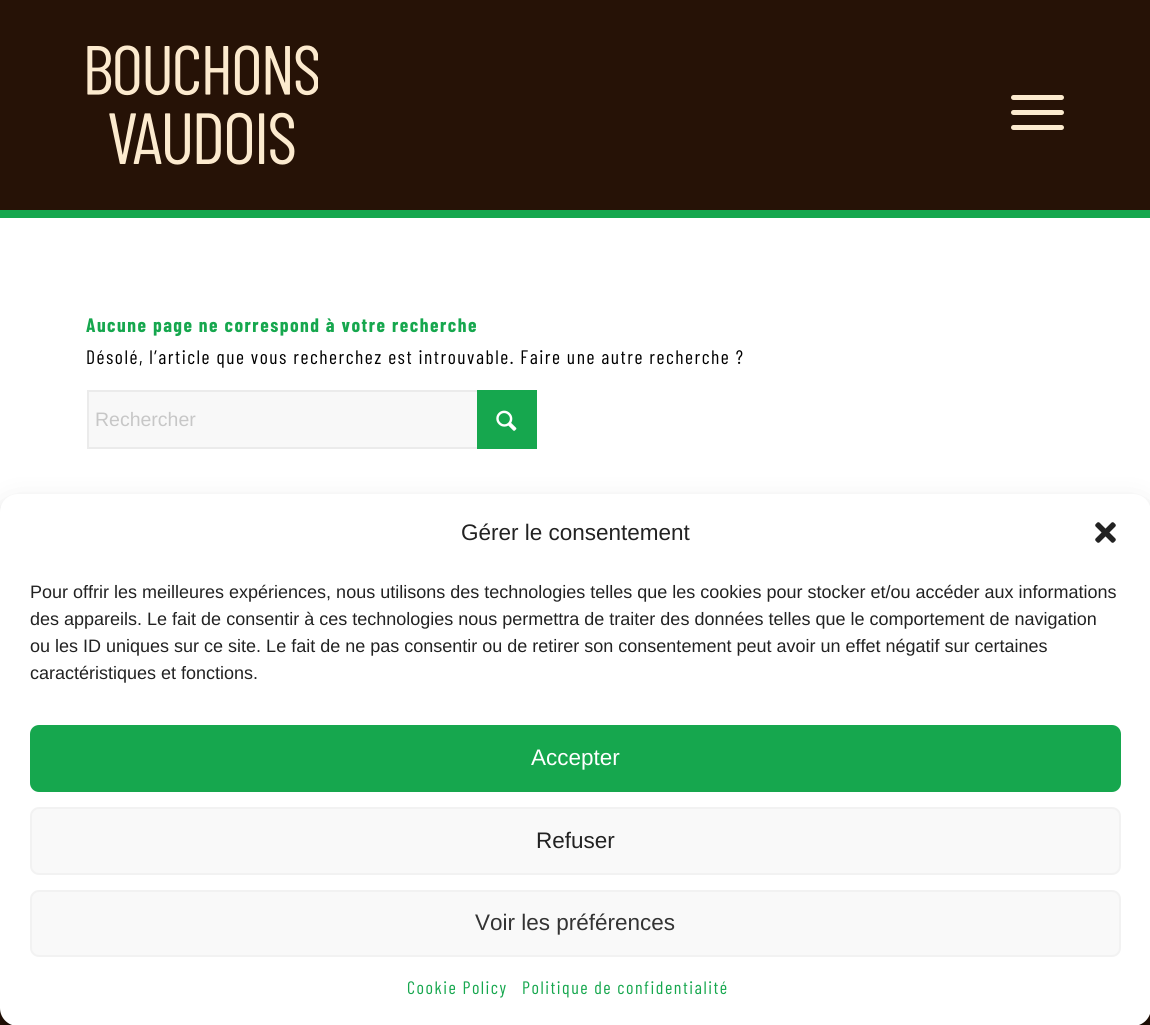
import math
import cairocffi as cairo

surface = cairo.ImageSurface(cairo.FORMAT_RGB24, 1150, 1025)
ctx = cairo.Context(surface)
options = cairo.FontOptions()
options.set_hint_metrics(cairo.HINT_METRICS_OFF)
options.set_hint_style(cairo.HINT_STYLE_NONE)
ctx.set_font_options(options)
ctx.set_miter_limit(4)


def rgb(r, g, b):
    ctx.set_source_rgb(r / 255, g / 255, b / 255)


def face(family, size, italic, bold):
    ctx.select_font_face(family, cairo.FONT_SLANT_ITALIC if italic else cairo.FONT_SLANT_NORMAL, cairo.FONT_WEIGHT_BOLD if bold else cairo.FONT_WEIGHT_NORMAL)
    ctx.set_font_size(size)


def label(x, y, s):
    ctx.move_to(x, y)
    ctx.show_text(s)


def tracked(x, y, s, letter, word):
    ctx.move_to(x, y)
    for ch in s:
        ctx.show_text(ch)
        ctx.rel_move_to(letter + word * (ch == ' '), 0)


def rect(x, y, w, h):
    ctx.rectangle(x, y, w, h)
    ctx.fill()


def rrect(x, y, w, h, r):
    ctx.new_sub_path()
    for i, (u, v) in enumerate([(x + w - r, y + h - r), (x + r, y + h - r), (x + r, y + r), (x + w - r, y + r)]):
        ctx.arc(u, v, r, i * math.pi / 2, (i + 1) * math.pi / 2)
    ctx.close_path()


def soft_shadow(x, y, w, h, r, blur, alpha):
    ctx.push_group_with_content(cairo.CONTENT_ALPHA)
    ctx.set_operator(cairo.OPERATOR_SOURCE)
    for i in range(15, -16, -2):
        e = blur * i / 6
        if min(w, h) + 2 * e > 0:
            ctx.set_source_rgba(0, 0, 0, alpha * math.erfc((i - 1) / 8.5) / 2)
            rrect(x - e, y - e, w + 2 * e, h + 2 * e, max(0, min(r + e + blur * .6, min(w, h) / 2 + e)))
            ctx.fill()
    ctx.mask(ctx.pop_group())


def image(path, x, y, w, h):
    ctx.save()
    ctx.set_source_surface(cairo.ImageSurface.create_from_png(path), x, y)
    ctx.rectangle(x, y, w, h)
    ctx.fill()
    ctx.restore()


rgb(38, 18, 6)
ctx.paint()
rgb(22, 167, 78)
rect(0, 210, 1150, 8)
image('image0.png', 87, 45, 231, 120)
rgb(252, 234, 206)
rrect(1011, 110, 53, 5, 2.5)
ctx.fill()
rrect(1011, 95, 53, 5, 2.5)
ctx.fill()
rrect(1011, 125, 53, 5, 2.5)
ctx.fill()
rgb(255, 255, 255)
rect(0, 218, 1150, 294)
face('Barlow Condensed', 19.5, 0, 1)
rgb(22, 167, 78)
tracked(86, 332, 'Aucune page ne correspond à votre recherche', 1.5, 0)
face('Barlow Condensed', 19.5, 0, 0)
rgb(0, 0, 0)
tracked(86, 364, 'Désolé, l’article que vous recherchez est introuvable. Faire une autre recherche ?', 1.5, 0)
rgb(248, 248, 248)
rect(89, 392, 388, 55)
ctx.rectangle(88, 391, 448, 57)
rgb(235, 235, 235)
ctx.stroke()
rgb(22, 167, 78)
rect(477, 390, 60, 59)
face('Liberation Sans', 19.5, 0, 0)
rgb(199, 199, 199)
label(95, 426, 'Rechercher')
image('image1.png', 496, 410, 21, 21)
rgb(0, 0, 0)
soft_shadow(0, 503, 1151, 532, 18, 4.5, 0.23)
soft_shadow(0, 509, 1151, 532, 18, 15, 0.19)
rgb(255, 255, 255)
rrect(0, 494, 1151, 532, 18)
ctx.fill()
face('Liberation Sans', 22.5, 0, 0)
rgb(34, 34, 34)
label(461, 540, 'Gérer le consentement')
image('image2.png', 1095, 522, 21, 21)
face('Liberation Sans', 18, 0, 0)
label(30, 598, 'Pour offrir les meilleures expériences, nous utilisons des technologies telles que les cookies pour stocker et/ou accéder aux informations')
label(30, 625, 'des appareils. Le fait de consentir à ces technologies nous permettra de traiter des données telles que le comportement de navigation')
label(30, 652, 'ou les ID uniques sur ce site. Le fait de ne pas consentir ou de retirer son consentement peut avoir un effet négatif sur certaines')
label(30, 679, 'caractéristiques et fonctions.')
rgb(22, 167, 78)
rrect(31, 726, 1089, 65, 8)
ctx.fill_preserve()
ctx.stroke()
face('Liberation Sans', 22.5, 0, 0)
rgb(255, 255, 255)
label(531, 765, 'Accepter')
rgb(249, 249, 249)
rrect(31, 808, 1089, 66, 8)
ctx.fill_preserve()
rgb(242, 242, 242)
ctx.stroke()
rgb(34, 34, 34)
label(536, 848, 'Refuser')
rgb(249, 249, 249)
rrect(31, 891, 1089, 65, 8)
ctx.fill_preserve()
rgb(242, 242, 242)
ctx.stroke()
rgb(51, 51, 51)
label(475, 930, 'Voir les préférences')
face('Barlow Condensed', 18, 0, 0)
rgb(22, 167, 78)
tracked(407, 994, 'Cookie Policy', 1.5, 0)
tracked(522, 994, 'Politique de confidentialité', 1.5, 0)
surface.write_to_png('render.png')
